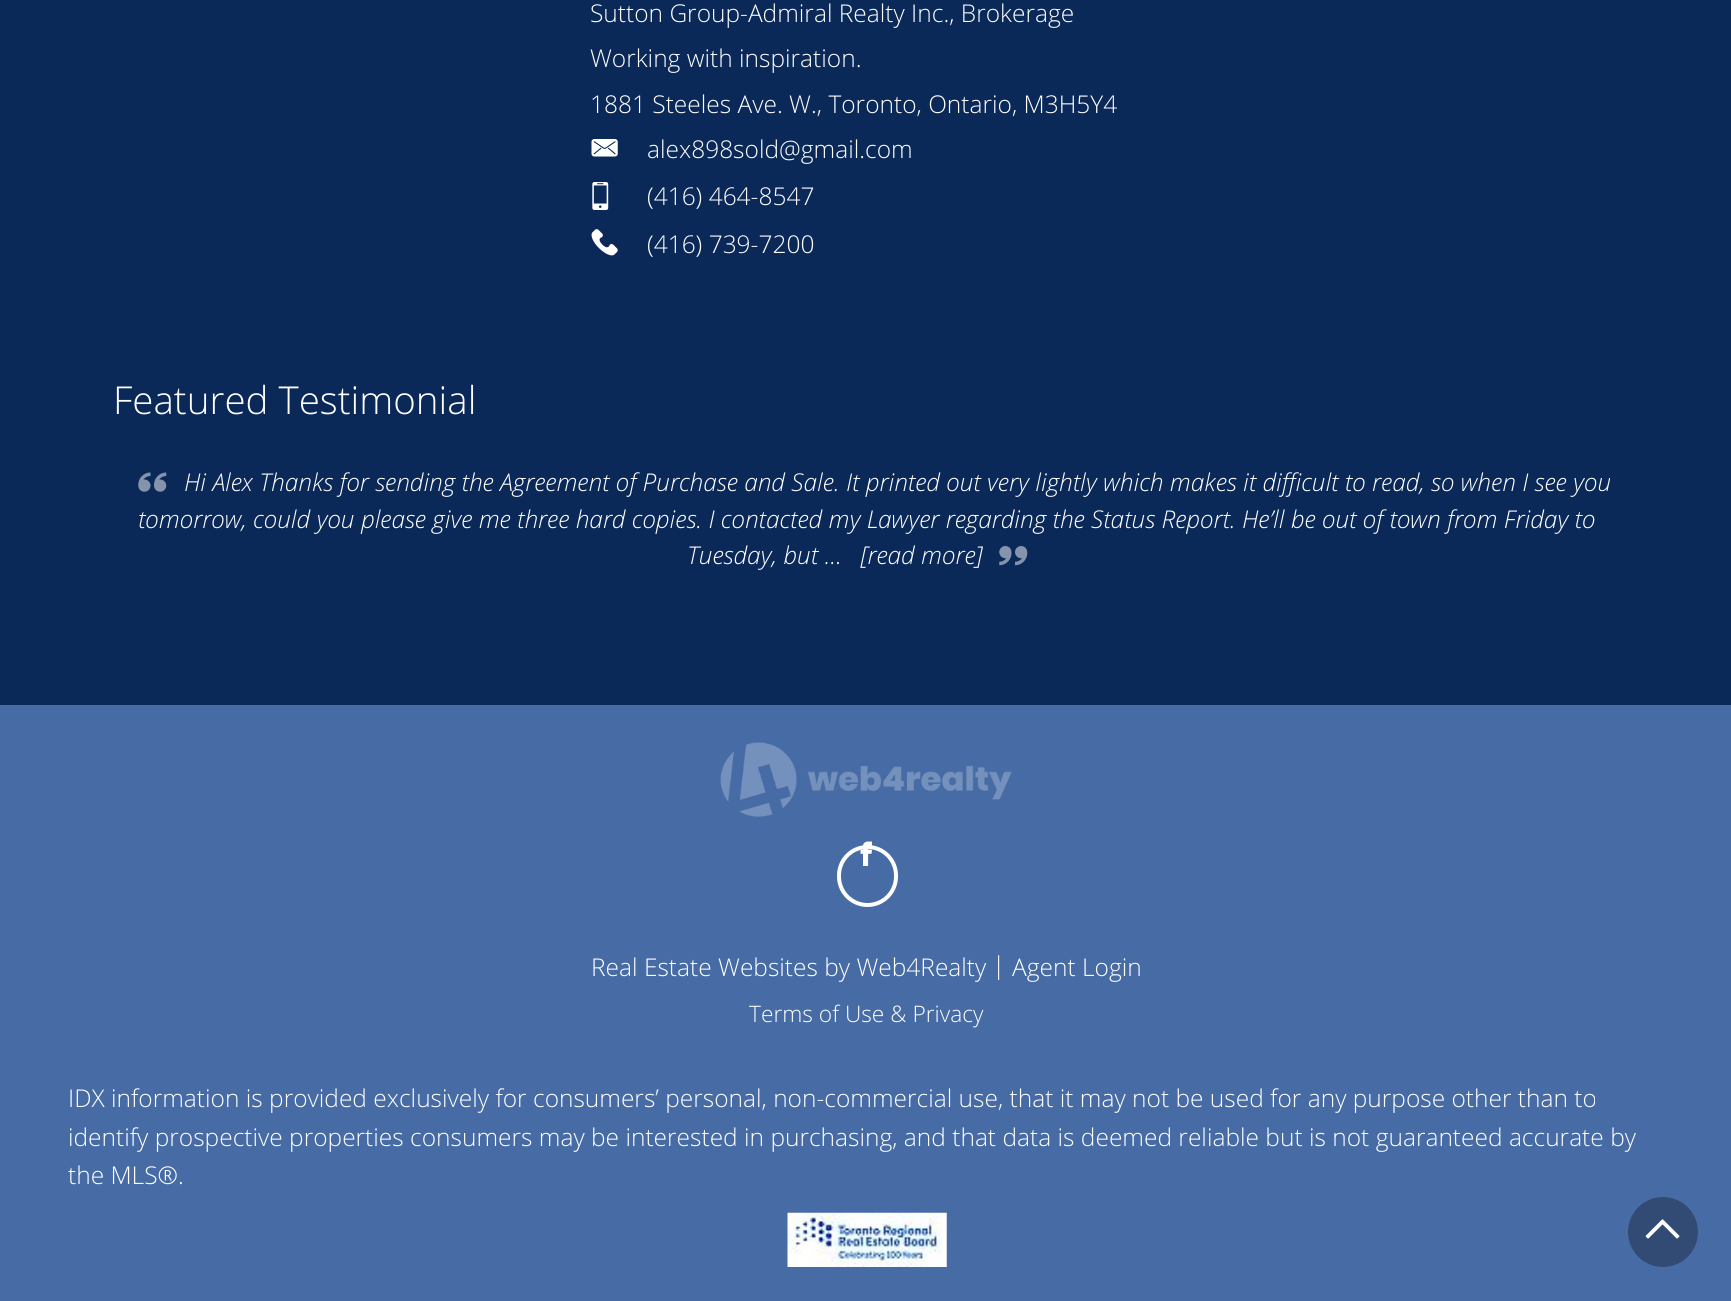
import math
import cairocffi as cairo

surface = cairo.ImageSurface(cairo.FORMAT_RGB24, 1731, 1301)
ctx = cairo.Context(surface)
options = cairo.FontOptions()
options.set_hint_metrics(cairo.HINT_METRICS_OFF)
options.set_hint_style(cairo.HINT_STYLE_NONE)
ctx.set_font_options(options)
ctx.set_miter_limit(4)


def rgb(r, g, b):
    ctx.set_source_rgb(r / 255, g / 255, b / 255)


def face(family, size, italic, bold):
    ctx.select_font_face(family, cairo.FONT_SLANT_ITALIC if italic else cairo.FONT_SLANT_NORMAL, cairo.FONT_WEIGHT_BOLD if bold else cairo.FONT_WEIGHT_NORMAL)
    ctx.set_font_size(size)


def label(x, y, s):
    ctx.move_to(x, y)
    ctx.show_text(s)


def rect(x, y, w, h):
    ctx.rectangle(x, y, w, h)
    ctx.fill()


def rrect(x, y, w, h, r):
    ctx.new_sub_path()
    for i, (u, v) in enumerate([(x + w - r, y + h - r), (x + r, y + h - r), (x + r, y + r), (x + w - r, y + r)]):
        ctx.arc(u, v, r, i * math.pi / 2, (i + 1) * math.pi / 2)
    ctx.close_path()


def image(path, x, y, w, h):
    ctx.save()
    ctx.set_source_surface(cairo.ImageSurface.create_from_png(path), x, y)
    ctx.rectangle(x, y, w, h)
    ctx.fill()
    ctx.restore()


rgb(10, 41, 89)
ctx.paint()
face('Open Sans Light', 24.5, 0, 0)
rgb(255, 255, 255)
label(590, 22, 'Sutton Group-Admiral Realty Inc., Brokerage')
label(590, 67, 'Working with inspiration.')
label(590, 113, '1881 Steeles Ave. W., Toronto, Ontario, M3H5Y4')
image('image0.png', 591, 139, 27, 18)
label(647, 158, 'alex898sold@gmail.com')
image('image1.png', 592, 182, 17, 28)
label(647, 205, '(416) 464-8547')
image('image2.png', 591, 229, 27, 27)
label(647, 253, '(416) 739-7200')
face('Open Sans Light', 38.5, 0, 0)
label(113, 414, 'Featured Testimonial')
face('Open Sans Light', 24.5, 1, 0)
label(184, 491, 'Hi Alex Thanks for sending the Agreement of Purchase and Sale. It printed out very lightly which makes it difficult to read, so when I see you')
label(138, 528, 'tomorrow, could you please give me three hard copies. I contacted my Lawyer regarding the Status Report. He’ll be out of town from Friday to')
label(687, 564, 'Tuesday, but ...')
label(861, 564, '[read more]')
image('image3.png', 138, 472, 29, 20)
image('image4.png', 999, 546, 29, 20)
rgb(70, 107, 165)
rect(0, 705, 1731, 596)
image('image5.png', 720, 742, 292, 75)
rrect(839, 847, 57, 58, 28.5)
rgb(255, 255, 255)
ctx.set_line_width(4)
ctx.stroke()
image('image6.png', 860, 841, 12, 25)
face('Open Sans Light', 24.5, 0, 0)
label(591, 976, 'Real Estate Websites by Web4Realty')
label(992, 974, '|')
label(1012, 976, 'Agent Login')
face('Open Sans Light', 22.75, 0, 0)
label(749, 1022, 'Terms of Use & Privacy')
face('Open Sans Light', 24.5, 0, 0)
label(68, 1107, 'IDX information is provided exclusively for consumers’ personal, non-commercial use, that it may not be used for any purpose other than to')
label(68, 1146, 'identify prospective properties consumers may be interested in purchasing, and that data is deemed reliable but is not guaranteed accurate by')
label(68, 1184, 'the MLS®.')
image('image7.png', 787, 1212, 160, 55)
rgb(49, 75, 116)
ctx.arc(1663, 1232, 35, 0, 2 * math.pi)
ctx.fill()
image('image8.png', 1645, 1219, 35, 20)
surface.write_to_png('render.png')
